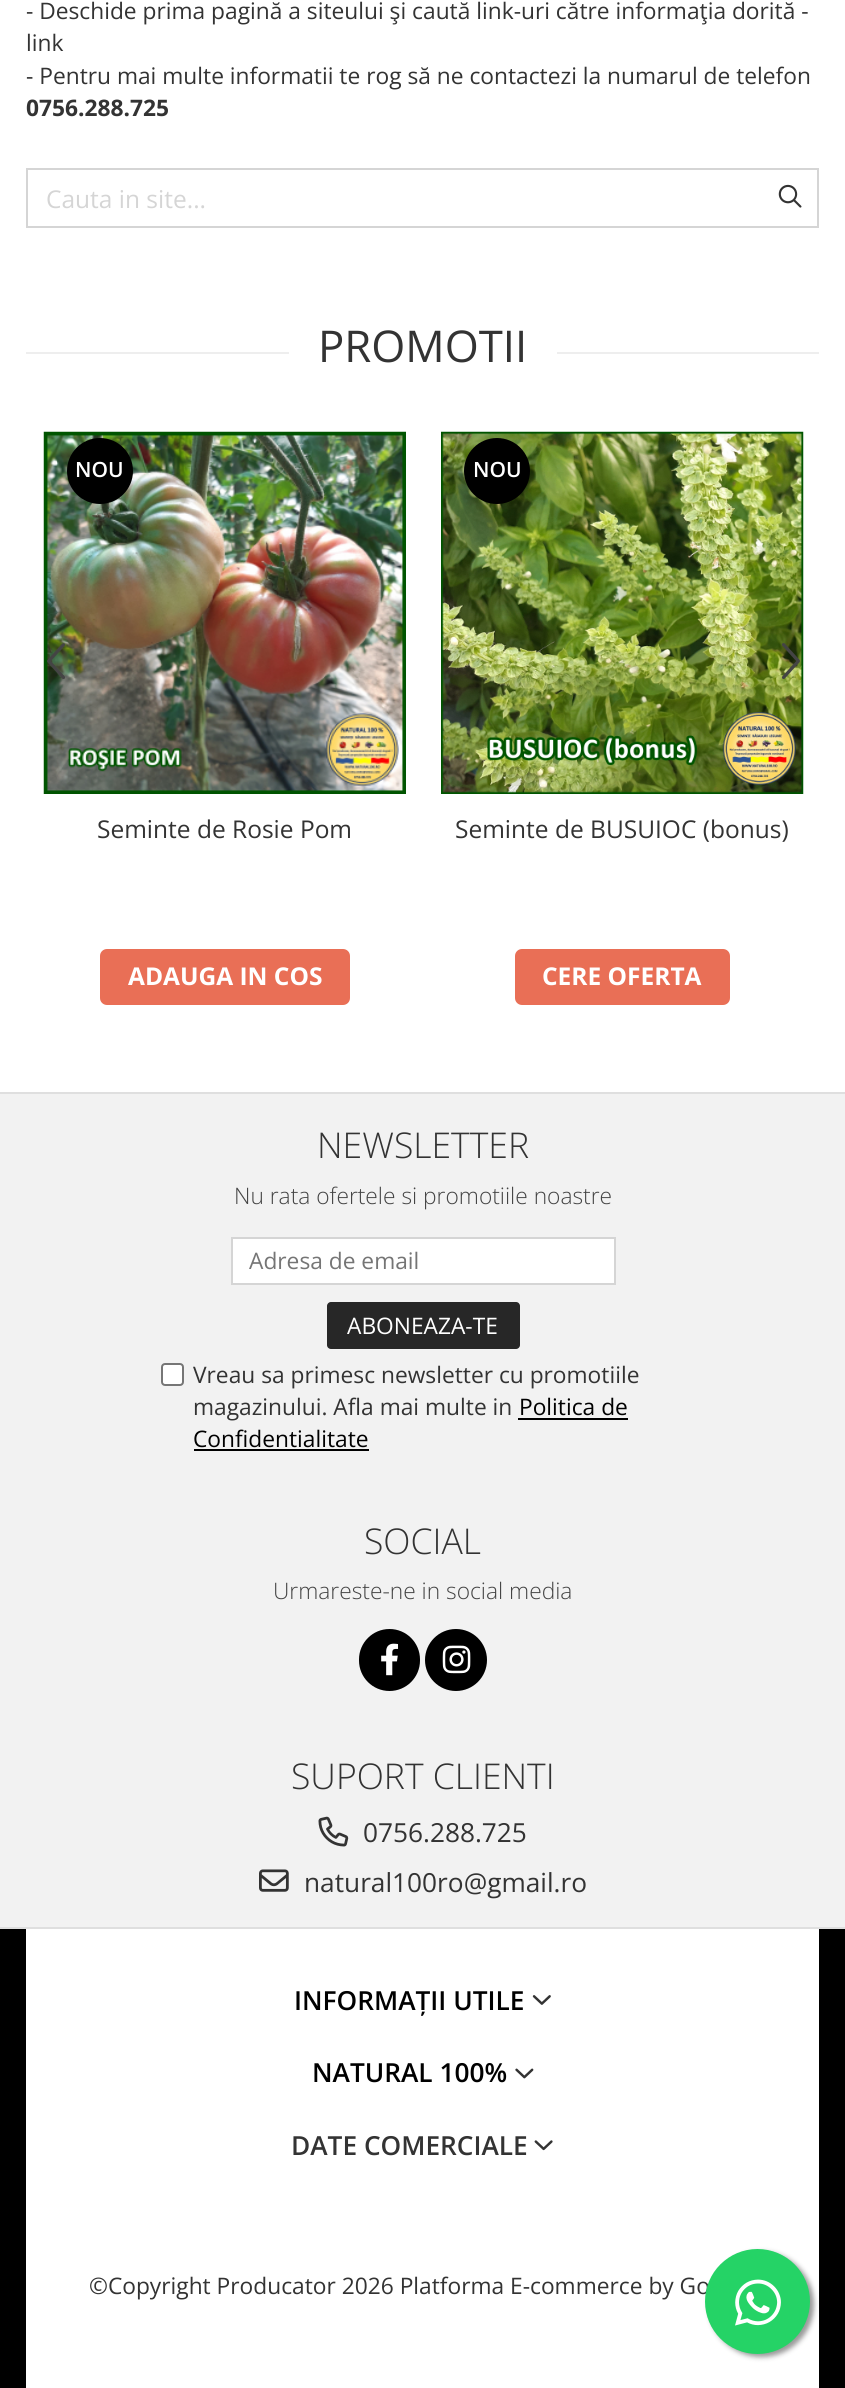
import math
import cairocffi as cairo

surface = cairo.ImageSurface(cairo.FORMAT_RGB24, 845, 2388)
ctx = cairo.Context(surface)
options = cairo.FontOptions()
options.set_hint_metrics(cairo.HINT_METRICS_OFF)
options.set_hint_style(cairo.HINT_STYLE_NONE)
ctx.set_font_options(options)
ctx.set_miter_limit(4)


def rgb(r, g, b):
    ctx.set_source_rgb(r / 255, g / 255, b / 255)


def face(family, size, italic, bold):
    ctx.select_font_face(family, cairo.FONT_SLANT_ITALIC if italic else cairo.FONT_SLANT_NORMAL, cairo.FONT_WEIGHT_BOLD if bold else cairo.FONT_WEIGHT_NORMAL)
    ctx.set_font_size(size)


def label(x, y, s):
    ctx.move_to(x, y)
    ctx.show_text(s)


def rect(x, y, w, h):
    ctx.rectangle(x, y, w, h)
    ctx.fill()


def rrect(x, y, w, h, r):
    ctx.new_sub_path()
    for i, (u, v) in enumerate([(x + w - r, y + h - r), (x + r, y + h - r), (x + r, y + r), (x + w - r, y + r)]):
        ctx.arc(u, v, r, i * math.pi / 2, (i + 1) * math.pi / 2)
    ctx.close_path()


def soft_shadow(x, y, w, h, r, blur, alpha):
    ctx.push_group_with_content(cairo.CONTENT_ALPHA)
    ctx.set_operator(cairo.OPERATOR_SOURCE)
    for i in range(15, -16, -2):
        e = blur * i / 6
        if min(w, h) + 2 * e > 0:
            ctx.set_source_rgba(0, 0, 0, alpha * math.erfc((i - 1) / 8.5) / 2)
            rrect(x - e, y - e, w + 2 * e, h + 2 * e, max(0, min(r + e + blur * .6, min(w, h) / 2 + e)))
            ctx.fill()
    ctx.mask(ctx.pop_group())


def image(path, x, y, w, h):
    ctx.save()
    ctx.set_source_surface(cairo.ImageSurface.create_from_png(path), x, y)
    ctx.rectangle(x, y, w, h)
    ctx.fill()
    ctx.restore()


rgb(0, 0, 0)
ctx.paint()
rgb(255, 255, 255)
rect(0, 0, 845, 1092)
face('Open Sans', 22.75, 0, 0)
rgb(51, 51, 51)
label(26, 19, '- Deschide prima pagină a siteului şi caută link-uri către informaţia dorită -')
label(26, 51, 'link')
label(26, 84, '- Pentru mai multe informatii te rog să ne contactezi la numarul de telefon')
face('Open Sans', 22.75, 0, 1)
label(26, 116, '0756.288.725')
ctx.rectangle(27, 169, 791, 58)
rgb(213, 213, 213)
ctx.stroke()
face('Open Sans', 24.5, 0, 0)
label(46, 208, 'Cauta in site...')
image('image0.png', 778, 184, 24, 24)
rgb(238, 238, 238)
rect(26, 352, 793, 2)
rgb(255, 255, 255)
rect(289, 352, 268, 2)
face('Open Sans', 43.75, 0, 0)
rgb(51, 51, 51)
label(318, 362, 'PROMOTII')
image('image1.png', 43, 431, 363, 363)
rgb(0, 0, 0)
ctx.arc(100, 471, 33, 0, 2 * math.pi)
ctx.fill()
face('Open Sans SemiBold', 21, 0, 0)
rgb(255, 255, 255)
label(75, 477, 'NOU')
face('Open Sans', 24.5, 0, 0)
rgb(51, 51, 51)
label(97, 838, 'Seminte de Rosie Pom')
rgb(233, 111, 86)
rrect(100, 949, 250, 56, 7)
ctx.fill()
face('Open Sans', 24.5, 0, 1)
rgb(255, 255, 255)
label(128, 985, 'ADAUGA IN COS')
image('image2.png', 441, 431, 363, 363)
rgb(0, 0, 0)
ctx.arc(497, 471, 33, 0, 2 * math.pi)
ctx.fill()
face('Open Sans SemiBold', 21, 0, 0)
rgb(255, 255, 255)
label(473, 477, 'NOU')
face('Open Sans', 24.5, 0, 0)
rgb(51, 51, 51)
label(455, 838, 'Seminte de BUSUIOC (bonus)')
rgb(233, 111, 86)
rrect(515, 949, 215, 56, 7)
ctx.fill()
face('Open Sans', 24.5, 0, 1)
rgb(255, 255, 255)
label(542, 985, 'CERE OFERTA')
image('image3.png', 47, 643, 18, 36)
image('image4.png', 782, 643, 18, 37)
rgb(242, 242, 242)
rect(0, 1094, 845, 833)
rgb(223, 223, 223)
rect(0, 1092, 845, 2)
rect(0, 1927, 845, 2)
face('Open Sans Light', 35.5, 0, 0)
rgb(51, 51, 51)
label(317, 1158, 'NEWSLETTER')
face('Open Sans Light', 22.75, 0, 0)
rgb(68, 68, 68)
label(234, 1204, 'Nu rata ofertele si promotiile noastre')
rgb(255, 255, 255)
ctx.rectangle(232, 1238, 383, 46)
ctx.fill_preserve()
rgb(213, 213, 213)
ctx.stroke()
face('Open Sans', 22.75, 0, 0)
rgb(117, 117, 117)
label(249, 1269, 'Adresa de email')
rgb(39, 39, 39)
rrect(327, 1302, 193, 47, 4)
ctx.fill()
rgb(255, 255, 255)
label(347, 1334, 'ABONEAZA-TE')
rrect(162, 1364, 21, 21, 3)
ctx.fill_preserve()
rgb(118, 118, 118)
ctx.stroke()
rgb(51, 51, 51)
label(193, 1383, 'Vreau sa primesc newsletter cu promotiile')
label(193, 1415, 'magazinului. Afla mai multe in')
rgb(0, 0, 0)
label(519, 1415, 'Politica de')
rect(518, 1418, 110, 2)
label(193, 1447, 'Confidentialitate')
rect(194, 1449, 175, 2)
face('Open Sans Light', 35.5, 0, 0)
rgb(51, 51, 51)
label(364, 1554, 'SOCIAL')
face('Open Sans Light', 22.75, 0, 0)
rgb(68, 68, 68)
label(273, 1599, 'Urmareste-ne in social media')
rgb(0, 0, 0)
rrect(359, 1629, 61, 62, 30.5)
ctx.fill()
image('image5.png', 381, 1643, 18, 33)
ctx.arc(456, 1660, 31, 0, 2 * math.pi)
ctx.fill()
image('image6.png', 442, 1645, 29, 29)
face('Open Sans Light', 35.5, 0, 0)
rgb(51, 51, 51)
label(291, 1789, 'SUPORT CLIENTI')
image('image7.png', 318, 1816, 31, 31)
face('Open Sans', 26.25, 0, 0)
label(363, 1842, '0756.288.725')
image('image8.png', 259, 1869, 30, 23)
label(304, 1892, 'natural100ro@gmail.ro')
rgb(255, 255, 255)
rect(26, 1929, 793, 459)
face('Open Sans SemiBold', 26.25, 0, 0)
rgb(0, 0, 0)
label(294, 2010, 'INFORMAȚII UTILE')
image('image9.png', 532, 1995, 19, 10)
label(312, 2082, 'NATURAL 100%')
image('image10.png', 515, 2068, 19, 11)
rgb(51, 51, 51)
label(291, 2155, 'DATE COMERCIALE')
image('image11.png', 534, 2140, 19, 11)
face('Open Sans', 22.75, 0, 0)
label(89, 2294, '©Copyright Producator 2026 Platforma E-commerce by Go')
rgb(153, 153, 153)
soft_shadow(709, 2252, 105, 105, 52.5, 2.5, 1)
rgb(37, 211, 102)
ctx.arc(757.5, 2301.5, 52.5, 0, 2 * math.pi)
ctx.fill()
image('image12.png', 735, 2279, 46, 47)
surface.write_to_png('render.png')
